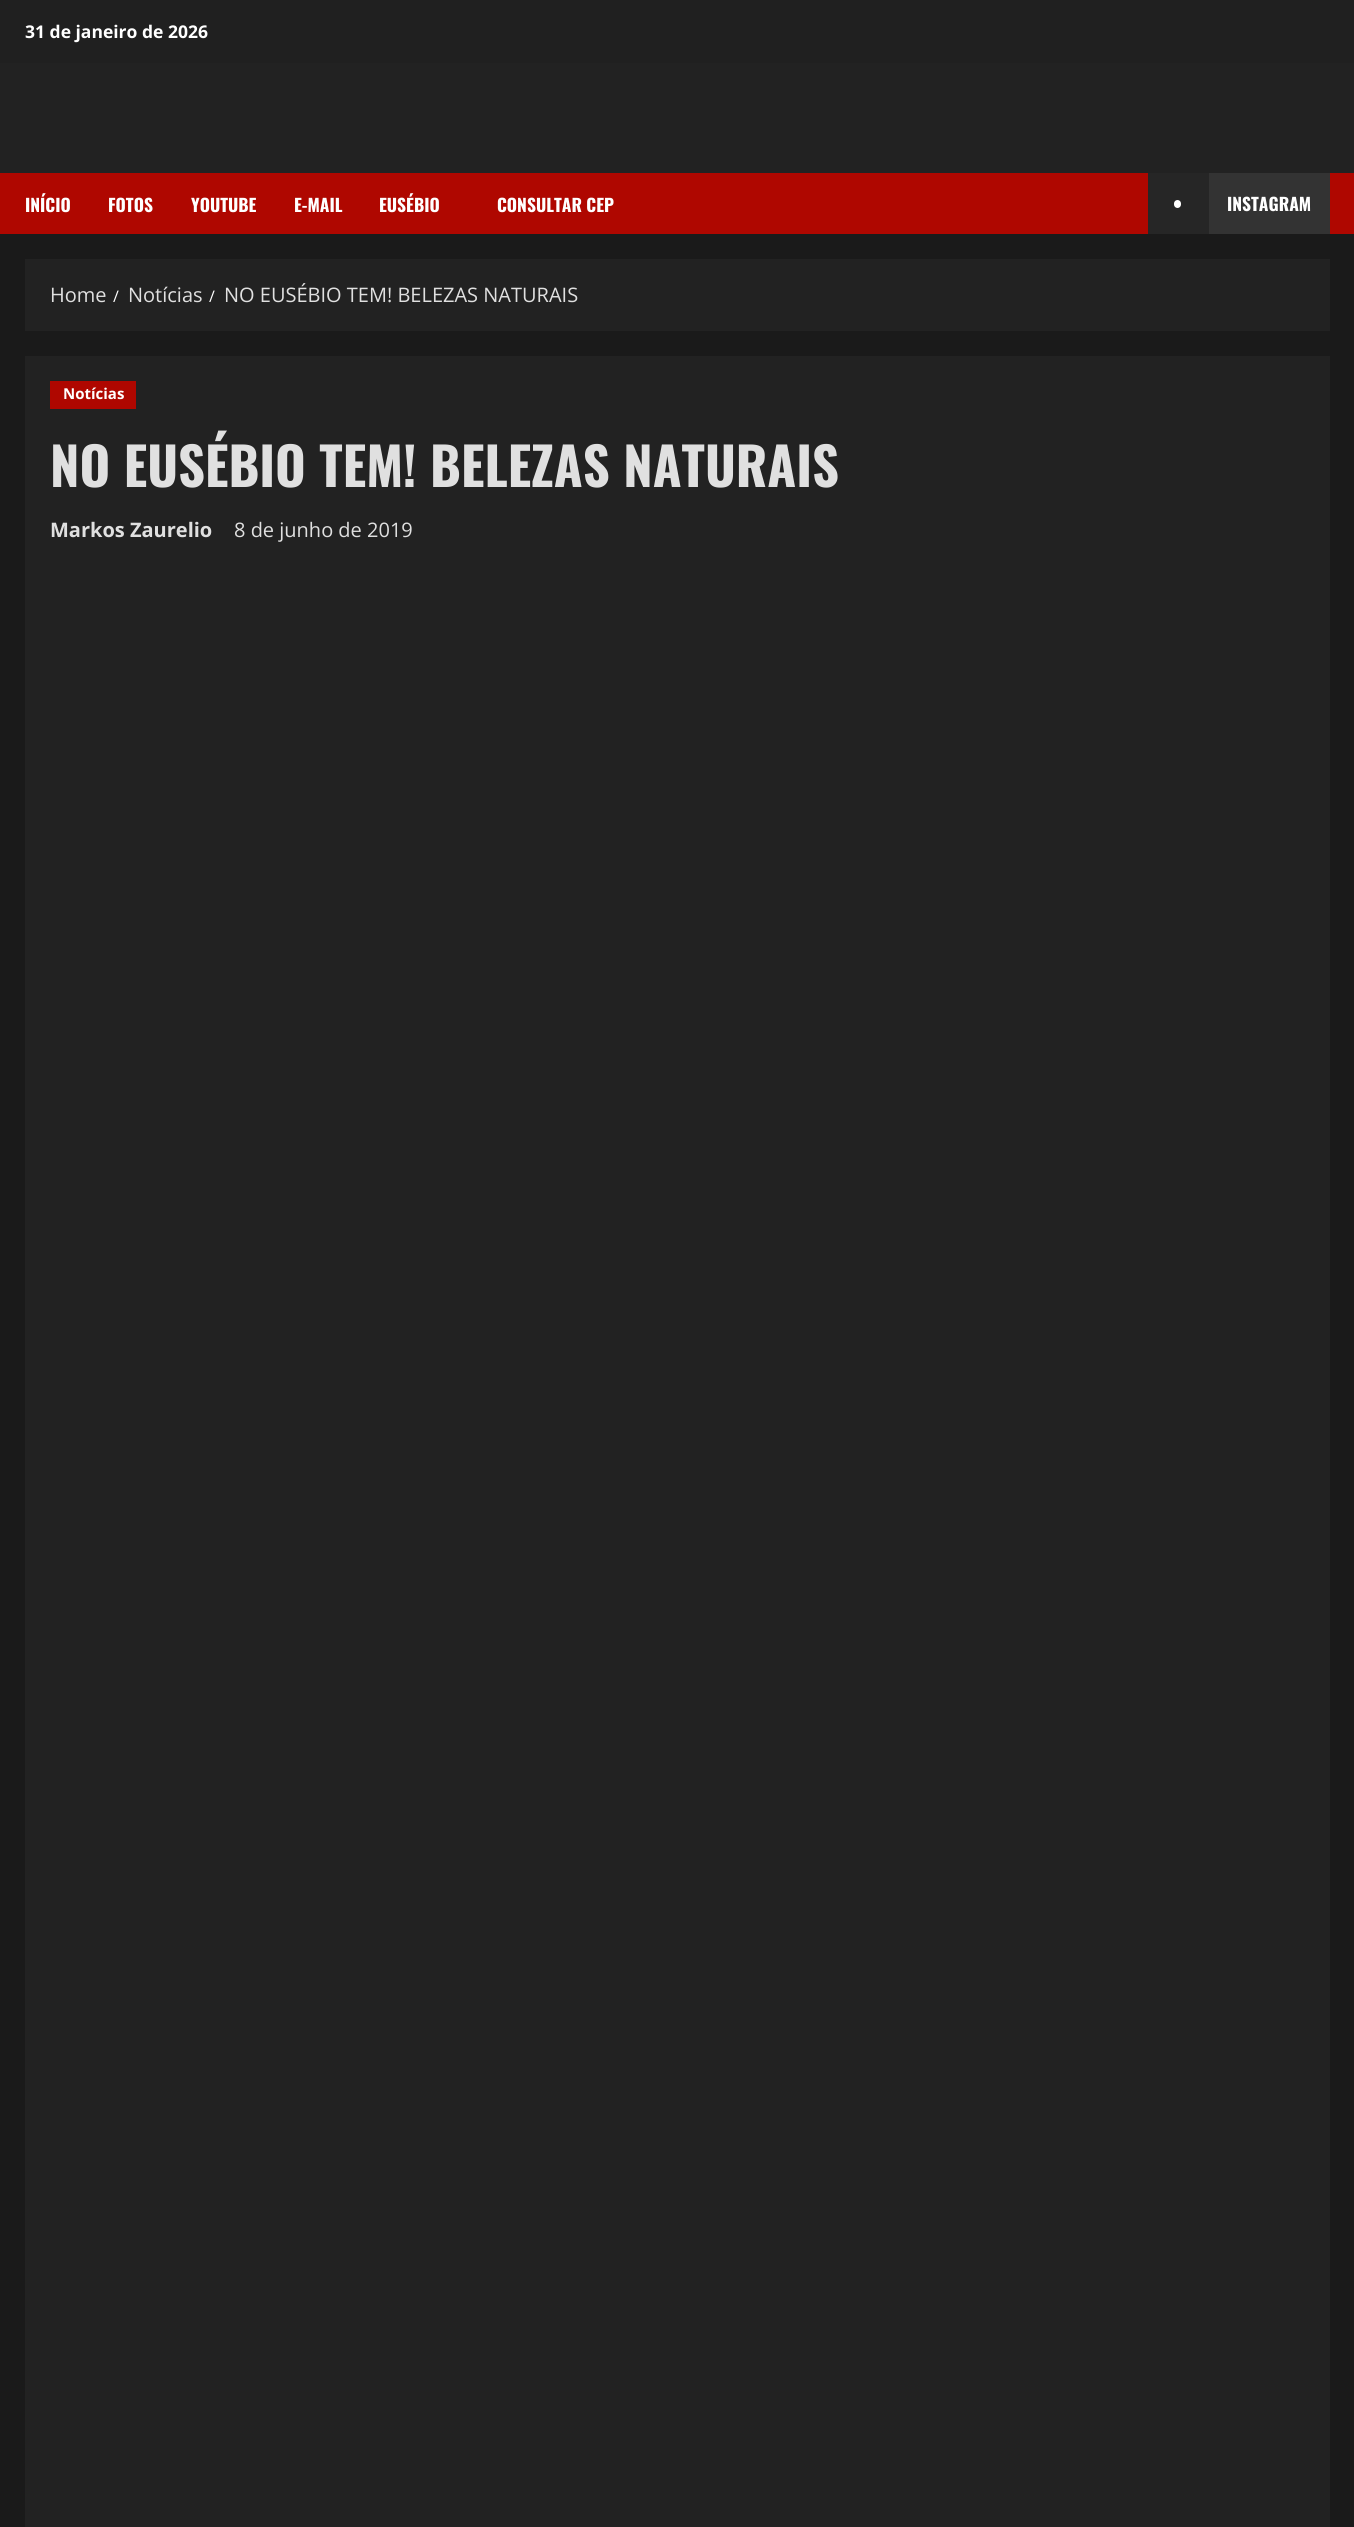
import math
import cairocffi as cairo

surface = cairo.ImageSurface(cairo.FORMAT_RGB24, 1354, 2527)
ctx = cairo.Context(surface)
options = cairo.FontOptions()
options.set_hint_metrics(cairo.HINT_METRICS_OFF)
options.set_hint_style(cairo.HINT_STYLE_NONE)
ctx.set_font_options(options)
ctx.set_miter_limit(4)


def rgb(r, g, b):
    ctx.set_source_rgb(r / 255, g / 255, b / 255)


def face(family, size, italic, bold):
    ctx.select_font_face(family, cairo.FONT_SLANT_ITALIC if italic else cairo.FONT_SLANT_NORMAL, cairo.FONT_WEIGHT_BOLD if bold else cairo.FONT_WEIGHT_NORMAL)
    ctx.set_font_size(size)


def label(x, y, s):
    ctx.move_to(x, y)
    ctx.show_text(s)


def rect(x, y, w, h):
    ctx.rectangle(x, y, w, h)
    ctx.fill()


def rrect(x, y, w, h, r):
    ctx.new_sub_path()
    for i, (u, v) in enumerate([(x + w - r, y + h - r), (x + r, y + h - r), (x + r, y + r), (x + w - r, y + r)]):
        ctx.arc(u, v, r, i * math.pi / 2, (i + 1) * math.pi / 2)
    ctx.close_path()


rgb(26, 26, 26)
ctx.paint()
rgb(32, 32, 32)
rect(0, 0, 1354, 63)
face('Open Sans', 17.5, 0, 1)
rgb(255, 255, 255)
label(25, 38, '31 de janeiro de 2026')
rgb(34, 34, 34)
rect(0, 63, 1354, 110)
rgb(175, 7, 0)
rect(0, 173, 1354, 61)
face('Oswald', 17.5, 0, 1)
rgb(255, 255, 255)
label(25, 212, 'INÍCIO')
label(108, 212, 'FOTOS')
label(191, 212, 'YOUTUBE')
label(294, 212, 'E-MAIL')
label(379, 212, 'EUSÉBIO')
label(497, 212, 'CONSULTAR CEP')
rgb(51, 51, 51)
rect(1209, 173, 121, 61)
rgb(38, 38, 38)
rect(1148, 173, 61, 61)
rgb(255, 255, 255)
rrect(1174, 200, 7, 8, 3.5)
ctx.fill()
label(1227, 211, 'INSTAGRAM')
rgb(34, 34, 34)
rect(25, 259, 1305, 72)
face('Open Sans', 20, 0, 0)
rgb(224, 224, 224)
label(50, 302, 'Home')
face('Open Sans', 16, 0, 0)
rgb(255, 255, 255)
label(113, 302, '/')
face('Open Sans', 20, 0, 0)
rgb(224, 224, 224)
label(128, 302, 'Notícias')
face('Open Sans', 16, 0, 0)
rgb(255, 255, 255)
label(209, 302, '/')
face('Open Sans', 20, 0, 0)
rgb(224, 224, 224)
label(224, 302, 'NO EUSÉBIO TEM! BELEZAS NATURAIS')
rgb(34, 34, 34)
rect(25, 356, 1305, 2171)
rgb(175, 7, 0)
rect(50, 381, 86, 28)
face('Open Sans', 15, 0, 1)
rgb(255, 255, 255)
label(63, 399, 'Notícias')
face('Oswald', 52.5, 0, 1)
rgb(224, 224, 224)
label(50, 487, 'NO EUSÉBIO TEM! BELEZAS NATURAIS')
face('Open Sans', 20, 0, 1)
label(50, 537, 'Markos Zaurelio')
face('Open Sans', 20, 0, 0)
label(234, 537, '8 de junho de 2019')
surface.write_to_png('render.png')
